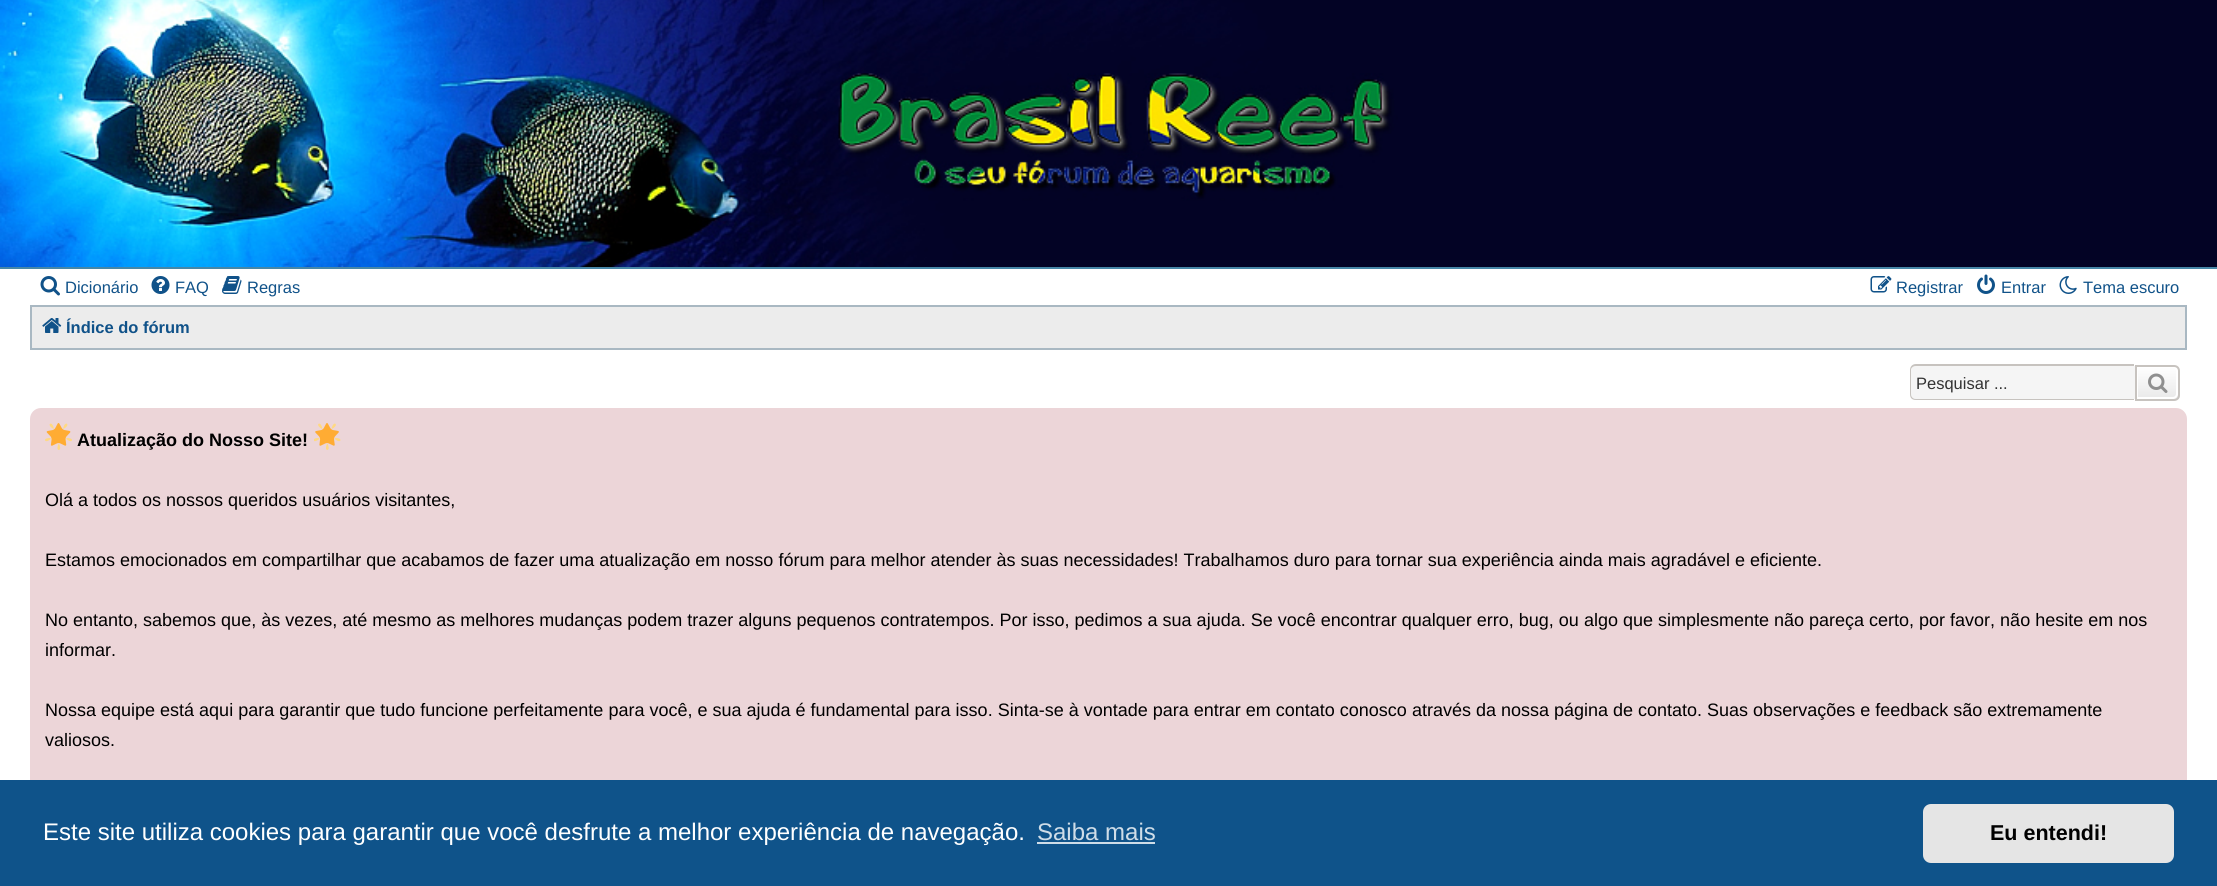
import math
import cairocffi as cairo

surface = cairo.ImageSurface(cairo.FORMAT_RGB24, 2217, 886)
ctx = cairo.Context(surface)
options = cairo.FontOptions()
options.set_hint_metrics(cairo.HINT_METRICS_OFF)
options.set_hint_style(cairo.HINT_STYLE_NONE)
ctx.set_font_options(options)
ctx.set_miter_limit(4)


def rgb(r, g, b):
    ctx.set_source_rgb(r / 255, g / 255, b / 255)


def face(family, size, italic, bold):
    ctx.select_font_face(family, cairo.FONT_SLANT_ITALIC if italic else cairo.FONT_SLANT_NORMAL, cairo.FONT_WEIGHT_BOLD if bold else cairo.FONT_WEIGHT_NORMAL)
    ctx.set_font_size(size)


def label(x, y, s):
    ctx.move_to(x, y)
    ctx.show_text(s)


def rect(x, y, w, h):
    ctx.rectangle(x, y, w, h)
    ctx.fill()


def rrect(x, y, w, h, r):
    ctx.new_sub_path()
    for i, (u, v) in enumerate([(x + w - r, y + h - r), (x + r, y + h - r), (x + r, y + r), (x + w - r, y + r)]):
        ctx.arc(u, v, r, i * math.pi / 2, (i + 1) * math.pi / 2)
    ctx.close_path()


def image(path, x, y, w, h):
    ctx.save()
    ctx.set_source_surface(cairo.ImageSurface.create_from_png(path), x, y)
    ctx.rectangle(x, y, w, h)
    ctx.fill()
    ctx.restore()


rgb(255, 255, 255)
ctx.paint()
rgb(71, 135, 167)
rect(0, 267, 2217, 2)
image('image0.png', 0, 0, 2217, 267)
image('image1.png', 40, 276, 20, 20)
face('Liberation Sans', 16.5, 0, 0)
rgb(16, 82, 137)
label(65, 293, 'Dicionário')
image('image2.png', 151, 276, 19, 18)
label(175, 293, 'FAQ')
image('image3.png', 222, 276, 20, 18)
label(247, 293, 'Regras')
image('image4.png', 1870, 276, 22, 17)
label(1896, 293, 'Registrar')
image('image5.png', 1977, 274, 18, 20)
label(2001, 293, 'Entrar')
image('image6.png', 2059, 276, 18, 18)
label(2083, 293, 'Tema escuro')
rgb(236, 236, 236)
ctx.rectangle(31, 306, 2155, 43)
ctx.fill_preserve()
rgb(169, 184, 194)
ctx.stroke()
image('image7.png', 42, 318, 20, 15)
face('Liberation Sans', 16.5, 0, 1)
rgb(16, 82, 137)
label(66, 333, 'Índice do fórum')
rgb(245, 245, 245)
ctx.new_path()
ctx.move_to(1916, 366)
ctx.line_to(2135, 366)
ctx.line_to(2135, 399)
ctx.line_to(1916, 399)
ctx.curve_to(1913, 399, 1911, 397, 1911, 394)
ctx.line_to(1911, 371)
ctx.curve_to(1911, 368, 1913, 366, 1916, 366)
ctx.close_path()
ctx.fill()
rgb(199, 195, 191)
ctx.set_fill_rule(cairo.FILL_RULE_EVEN_ODD)
ctx.new_path()
ctx.move_to(1916, 364)
ctx.line_to(2134, 364)
ctx.line_to(2134, 400)
ctx.line_to(1916, 400)
ctx.curve_to(1912, 400, 1910, 398, 1910, 394)
ctx.line_to(1910, 370)
ctx.curve_to(1910, 367, 1912, 364, 1916, 364)
ctx.close_path()
ctx.move_to(1916, 366)
ctx.line_to(2134, 366)
ctx.line_to(2134, 399)
ctx.line_to(1916, 399)
ctx.curve_to(1913, 399, 1911, 397, 1911, 394)
ctx.line_to(1911, 370)
ctx.curve_to(1911, 368, 1913, 366, 1916, 366)
ctx.close_path()
ctx.fill()
face('Liberation Sans', 16.5, 0, 0)
rgb(51, 51, 51)
label(1916, 389, 'Pesquisar ...')
ctx.save()
ctx.set_fill_rule(cairo.FILL_RULE_WINDING)
ctx.new_path()
ctx.move_to(2135, 365)
ctx.line_to(2174, 365)
ctx.curve_to(2177.5, 365, 2180, 367.5, 2180, 371)
ctx.line_to(2180, 395)
ctx.curve_to(2180, 398.5, 2177.5, 401, 2174, 401)
ctx.line_to(2135, 401)
ctx.close_path()
ctx.clip()
gradient = cairo.LinearGradient(2157, 366, 2157, 399)
gradient.add_color_stop_rgba(0, 1, 1, 1, 1)
gradient.add_color_stop_rgba(1, 0.914, 0.914, 0.914, 1)
ctx.set_source(gradient)
rect(2138, 366, 42, 33)
ctx.restore()
ctx.new_path()
ctx.move_to(2137, 367)
ctx.line_to(2173, 367)
ctx.curve_to(2175, 367, 2177, 369, 2177, 371)
ctx.line_to(2177, 394)
ctx.curve_to(2177, 396, 2175, 398, 2173, 398)
ctx.line_to(2137, 398)
ctx.close_path()
rgb(255, 255, 255)
ctx.stroke()
ctx.new_path()
ctx.move_to(2136, 366)
ctx.line_to(2174, 366)
ctx.curve_to(2177, 366, 2179, 368, 2179, 371)
ctx.line_to(2179, 395)
ctx.curve_to(2179, 398, 2177, 400, 2174, 400)
ctx.line_to(2136, 400)
ctx.close_path()
rgb(199, 195, 191)
ctx.stroke()
image('image8.png', 2148, 373, 20, 20)
rgb(236, 213, 216)
rrect(30, 408, 2157, 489, 11)
ctx.fill()
image('image9.png', 45, 423, 27, 27)
face('Liberation Sans', 18, 0, 1)
rgb(0, 0, 0)
label(77, 446, 'Atualização do Nosso Site!')
image('image10.png', 314, 423, 27, 27)
face('Liberation Sans', 18, 0, 0)
label(45, 506, 'Olá a todos os nossos queridos usuários visitantes,')
label(45, 566, 'Estamos emocionados em compartilhar que acabamos de fazer uma atualização em nosso fórum para melhor atender às suas necessidades! Trabalhamos duro para tornar sua experiência ainda mais agradável e eficiente.')
label(45, 626, 'No entanto, sabemos que, às vezes, até mesmo as melhores mudanças podem trazer alguns pequenos contratempos. Por isso, pedimos a sua ajuda. Se você encontrar qualquer erro, bug, ou algo que simplesmente não pareça certo, por favor, não hesite em nos')
label(45, 656, 'informar.')
label(45, 716, 'Nossa equipe está aqui para garantir que tudo funcione perfeitamente para você, e sua ajuda é fundamental para isso. Sinta-se à vontade para entrar em contato conosco através da nossa página de contato. Suas observações e feedback são extremamente')
label(45, 746, 'valiosos.')
rgb(15, 83, 138)
rect(0, 780, 2217, 106)
face('Liberation Sans', 24, 0, 0)
rgb(255, 255, 255)
label(43, 840, 'Este site utiliza cookies para garantir que você desfrute a melhor experiência de navegação.')
rgb(207, 221, 232)
label(1037, 840, 'Saiba mais')
rect(1037, 842, 118, 2)
rgb(229, 229, 229)
rrect(1923, 804, 251, 59, 8)
ctx.fill()
face('Liberation Sans', 21.5, 0, 1)
rgb(0, 0, 0)
label(1990, 840, 'Eu entendi!')
surface.write_to_png('render.png')
